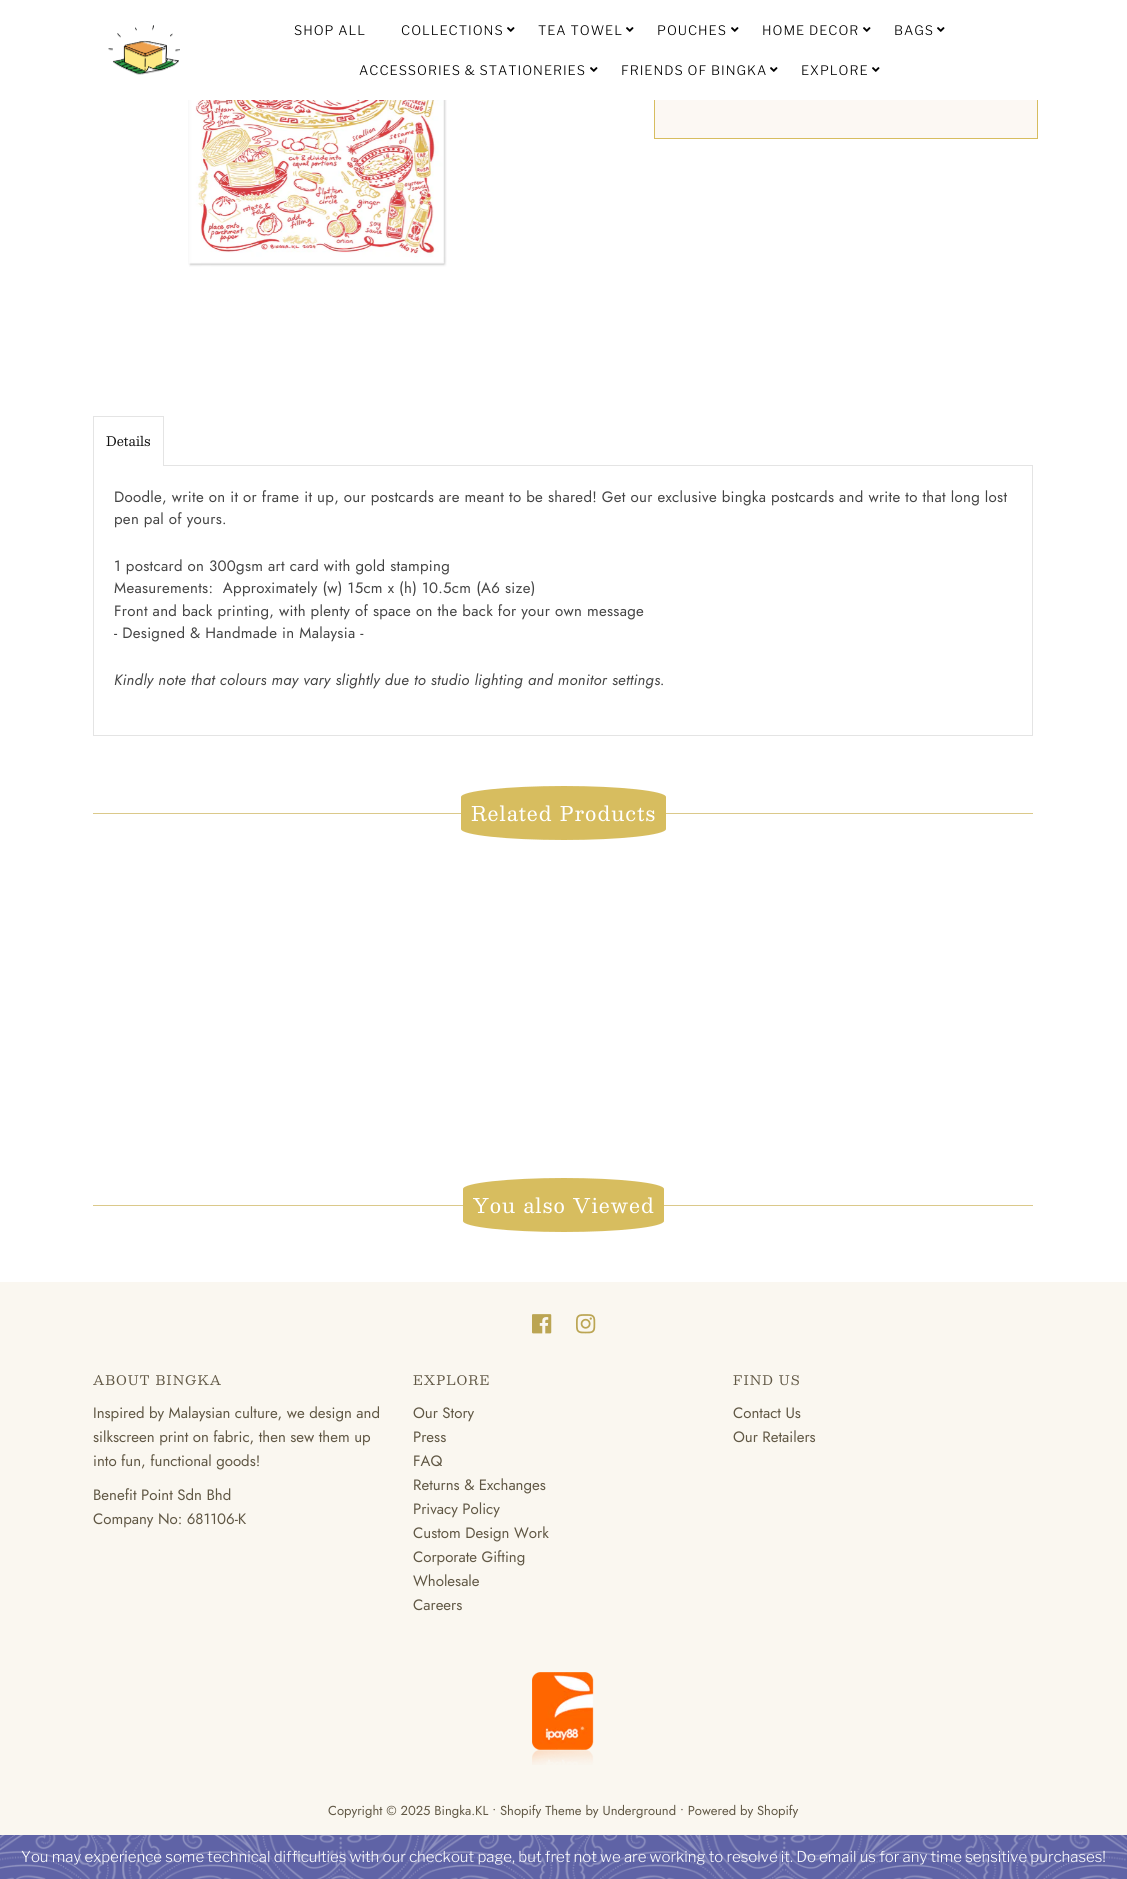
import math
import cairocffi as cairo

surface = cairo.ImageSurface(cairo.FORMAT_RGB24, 1127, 1879)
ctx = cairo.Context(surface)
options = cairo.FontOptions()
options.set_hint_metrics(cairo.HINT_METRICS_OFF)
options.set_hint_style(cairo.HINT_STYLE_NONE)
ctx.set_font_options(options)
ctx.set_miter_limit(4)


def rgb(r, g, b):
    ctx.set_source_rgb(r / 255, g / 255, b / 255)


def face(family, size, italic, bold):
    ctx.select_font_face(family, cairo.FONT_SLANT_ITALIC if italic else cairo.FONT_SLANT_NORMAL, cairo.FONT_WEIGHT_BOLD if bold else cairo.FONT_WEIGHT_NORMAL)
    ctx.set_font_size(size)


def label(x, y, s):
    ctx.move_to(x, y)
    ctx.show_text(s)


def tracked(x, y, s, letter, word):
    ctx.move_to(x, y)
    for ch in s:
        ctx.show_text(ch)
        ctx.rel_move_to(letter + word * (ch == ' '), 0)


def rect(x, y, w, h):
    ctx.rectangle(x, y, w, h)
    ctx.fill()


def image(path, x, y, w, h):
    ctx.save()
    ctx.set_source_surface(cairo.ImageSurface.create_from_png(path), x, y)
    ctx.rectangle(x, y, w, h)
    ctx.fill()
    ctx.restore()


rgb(255, 255, 255)
ctx.paint()
rgb(252, 248, 243)
rect(655, 100, 382, 38)
ctx.rectangle(654.5, -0.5, 383, 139)
rgb(215, 189, 95)
ctx.set_line_width(1)
ctx.stroke()
rgb(255, 255, 255)
rect(654, 0, 384, 100)
image('image0.png', 108, 25, 72, 50)
face('Libre Franklin Light', 13, 0, 0)
rgb(0, 0, 0)
tracked(294, 35, 'SHOP ALL', 1, 0)
tracked(401, 35, 'COLLECTIONS', 1, 0)
image('image1.png', 507, 27, 8, 5)
tracked(538, 35, 'TEA TOWEL', 1, 0)
image('image1.png', 626, 27, 8, 5)
tracked(657, 35, 'POUCHES', 1, 0)
image('image1.png', 731, 27, 8, 5)
tracked(762, 35, 'HOME DECOR', 1, 0)
image('image1.png', 863, 27, 8, 5)
tracked(894, 35, 'BAGS', 1, 0)
image('image1.png', 937, 27, 8, 5)
tracked(359, 75, 'ACCESSORIES & STATIONERIES', 1, 0)
image('image1.png', 590, 67, 8, 5)
tracked(621, 75, 'FRIENDS OF BINGKA', 1, 0)
image('image1.png', 770, 67, 8, 5)
tracked(801, 75, 'EXPLORE', 1, 0)
image('image1.png', 872, 67, 8, 5)
image('image2.png', 188, 100, 259, 167)
rgb(228, 228, 228)
rect(93, 416, 71, 1)
rect(163, 416, 1, 49)
rect(93, 416, 1, 49)
face('Besley', 13, 0, 0)
rgb(17, 17, 17)
label(106, 446, 'Details')
ctx.rectangle(93.5, 465.5, 939, 270)
rgb(228, 228, 228)
ctx.stroke()
rgb(255, 255, 255)
rect(94, 465, 69, 1)
face('Jost', 15, 0, 0)
rgb(68, 68, 68)
tracked(114, 502, 'Doodle, write on it or frame it up, our postcards are meant to be shared! Get our exclusive bingka postcards and write to that long lost', 0.3, 0)
tracked(114, 524, 'pen pal of yours.', 0.3, 0)
tracked(114, 571, '1 postcard on 300gsm art card with gold stamping', 0.3, 0)
tracked(114, 593, 'Measurements:  Approximately (w) 15cm x (h) 10.5cm (A6 size)', 0.3, 0)
tracked(114, 616, 'Front and back printing, with plenty of space on the back for your own message', 0.3, 0)
tracked(114, 638, '- Designed & Handmade in Malaysia -', 0.3, 0)
face('Jost', 15, 1, 0)
tracked(114, 685, 'Kindly note that colours may vary slightly due to studio lighting and monitor settings.', 0.3, 0)
rgb(219, 201, 138)
rect(93, 813, 940, 1)
rgb(215, 189, 95)
ctx.new_path()
ctx.move_to(564, 786)
ctx.curve_to(620, 786, 666, 791, 666, 797)
ctx.line_to(666, 829)
ctx.curve_to(666, 835, 620, 840, 564, 840)
ctx.curve_to(507, 840, 461, 835, 461, 829)
ctx.line_to(461, 797)
ctx.curve_to(461, 791, 507, 786, 564, 786)
ctx.close_path()
ctx.fill()
face('Besley', 20, 0, 0)
rgb(255, 255, 255)
tracked(471, 821, 'Related Products', 1, 0)
rgb(219, 201, 138)
rect(93, 1205, 940, 1)
rgb(215, 189, 95)
ctx.new_path()
ctx.move_to(564, 1178)
ctx.curve_to(619, 1178, 664, 1183, 664, 1189)
ctx.line_to(664, 1221)
ctx.curve_to(664, 1227, 619, 1232, 564, 1232)
ctx.curve_to(508, 1232, 463, 1227, 463, 1221)
ctx.line_to(463, 1189)
ctx.curve_to(463, 1183, 508, 1178, 564, 1178)
ctx.close_path()
ctx.fill()
rgb(255, 255, 255)
tracked(473, 1213, 'You also Viewed', 1, 0)
rgb(250, 247, 240)
rect(0, 1282, 1127, 553)
image('image3.png', 532, 1314, 20, 20)
image('image4.png', 576, 1314, 20, 20)
face('Besley', 13, 0, 0)
rgb(96, 87, 68)
tracked(93, 1385, 'ABOUT BINGKA', 1, 0)
face('Jost', 15, 0, 0)
label(93, 1418, 'Inspired by Malaysian culture, we design and')
label(93, 1442, 'silkscreen print on fabric, then sew them up')
label(93, 1466, 'into fun, functional goods!')
label(93, 1500, 'Benefit Point Sdn Bhd')
label(93, 1524, 'Company No: 681106-K')
face('Besley', 13, 0, 0)
tracked(413, 1385, 'EXPLORE', 1, 0)
face('Jost', 15, 0, 0)
label(413, 1418, 'Our Story')
label(413, 1442, 'Press')
label(413, 1466, 'FAQ')
label(413, 1490, 'Returns & Exchanges')
label(413, 1514, 'Privacy Policy')
label(413, 1538, 'Custom Design Work')
label(413, 1562, 'Corporate Gifting')
label(413, 1586, 'Wholesale')
label(413, 1610, 'Careers')
face('Besley', 13, 0, 0)
tracked(733, 1385, 'FIND US', 1, 0)
face('Jost', 15, 0, 0)
label(733, 1418, 'Contact Us')
label(733, 1442, 'Our Retailers')
image('image5.png', 532, 1672, 62, 93)
face('Jost', 13, 0, 0)
label(328, 1815, 'Copyright © 2025 Bingka.KL • Shopify Theme by Underground • Powered by Shopify')
rgb(95, 99, 166)
rect(0, 1835, 1127, 44)
image('image6.png', 0, 1835, 1127, 44)
face('Libre Franklin Light', 15, 0, 0)
rgb(255, 255, 255)
label(21, 1862, 'You may experience some technical difficulties with our checkout page, but fret not we are working to resolve it. Do email us for any time sensitive purchases!')
surface.write_to_png('render.png')
